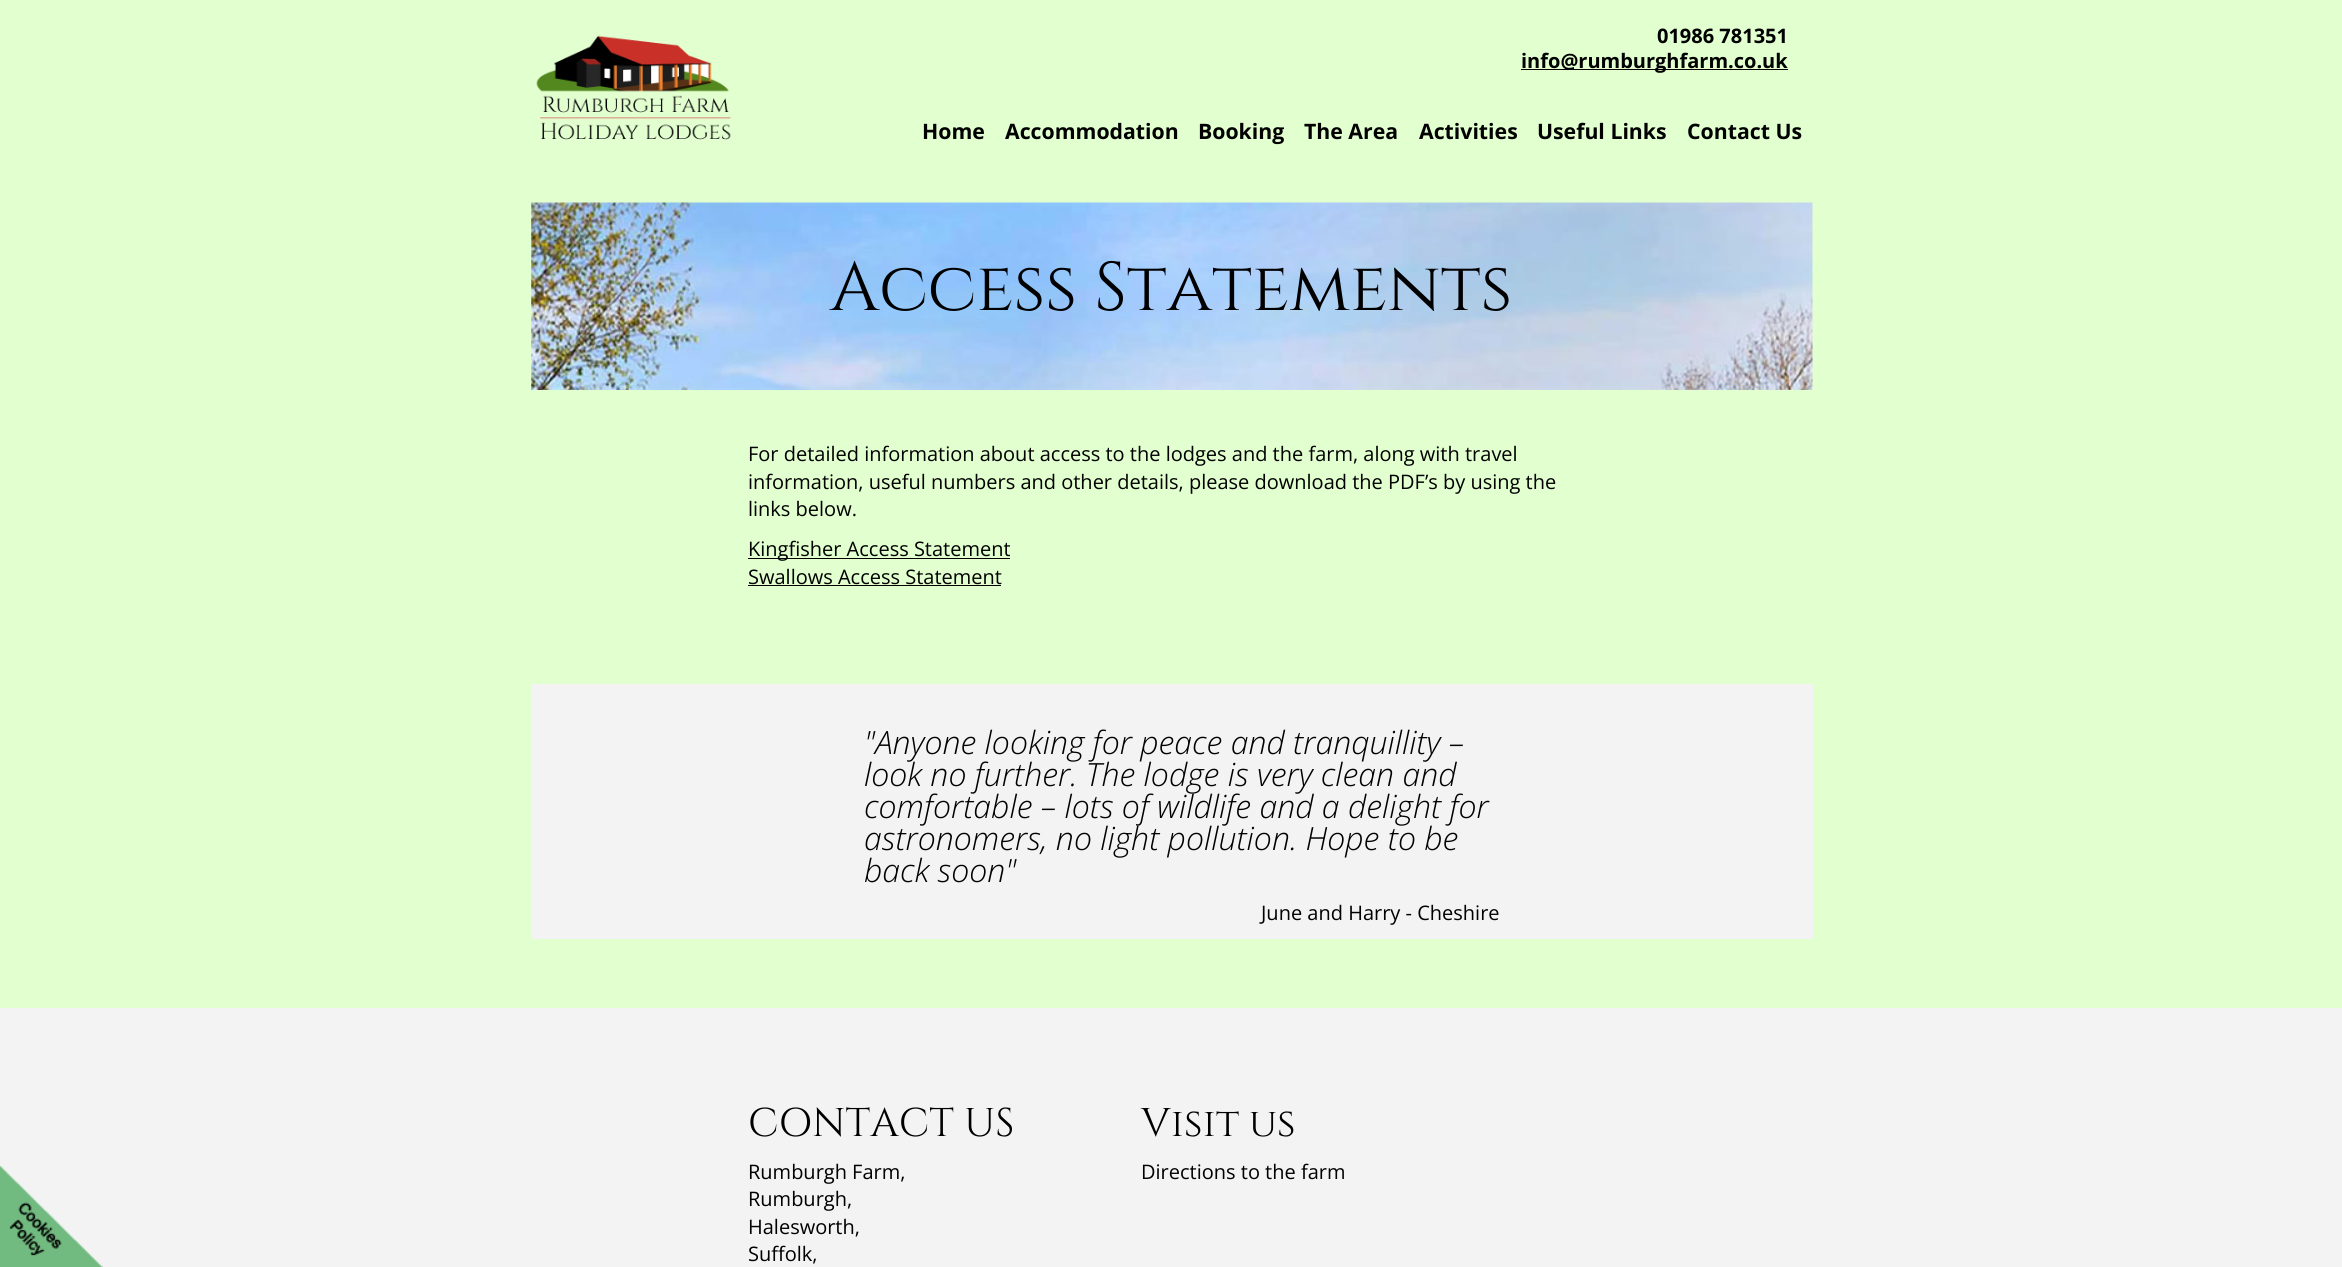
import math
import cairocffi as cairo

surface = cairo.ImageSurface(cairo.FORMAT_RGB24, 2342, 1267)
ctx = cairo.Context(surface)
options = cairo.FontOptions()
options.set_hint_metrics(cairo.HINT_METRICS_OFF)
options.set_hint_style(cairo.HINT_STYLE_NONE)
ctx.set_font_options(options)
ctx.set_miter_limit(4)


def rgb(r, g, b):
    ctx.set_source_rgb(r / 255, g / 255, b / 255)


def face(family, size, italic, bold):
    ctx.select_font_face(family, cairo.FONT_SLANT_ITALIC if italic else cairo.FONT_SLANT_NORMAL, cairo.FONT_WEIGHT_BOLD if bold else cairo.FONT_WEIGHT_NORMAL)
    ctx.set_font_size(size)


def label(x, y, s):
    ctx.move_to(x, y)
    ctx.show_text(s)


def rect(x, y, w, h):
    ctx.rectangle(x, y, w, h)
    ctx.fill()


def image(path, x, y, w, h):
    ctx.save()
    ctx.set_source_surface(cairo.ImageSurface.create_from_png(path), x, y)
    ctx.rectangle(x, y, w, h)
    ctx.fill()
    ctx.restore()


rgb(226, 255, 207)
ctx.paint()
image('image0.png', 536, 35, 195, 105)
face('Open Sans', 20, 0, 1)
rgb(0, 0, 0)
label(1657, 43, '01986 781351')
rect(1521, 69, 267, 1)
label(1521, 68, 'info@rumburghfarm.co.uk')
face('Open Sans', 21.25, 0, 1)
label(922, 139, 'Home')
label(1005, 139, 'Accommodation')
label(1198, 139, 'Booking')
label(1304, 139, 'The Area')
label(1419, 139, 'Activities')
label(1537, 139, 'Useful Links')
label(1687, 139, 'Contact Us')
image('image1.png', 531, 202, 1282, 188)
face('Cinzel', 68.75, 0, 0)
label(830, 310, 'Access Statements')
face('Open Sans', 20, 0, 0)
label(748, 461, 'For detailed information about access to the lodges and the farm, along with travel')
label(748, 489, 'information, useful numbers and other details, please download the PDF’s by using the')
label(748, 516, 'links below.')
rect(748, 558, 262, 1)
label(748, 556, 'Kingfisher Access Statement')
label(748, 584, 'Swallows Access Statement')
rect(748, 585, 253, 1)
rgb(243, 243, 243)
rect(531, 684, 1282, 255)
face('Open Sans Light', 32, 1, 0)
rgb(0, 0, 0)
label(864, 754, '"Anyone looking for peace and tranquillity –')
label(864, 786, 'look no further. The lodge is very clean and')
label(864, 818, 'comfortable – lots of wildlife and a delight for')
label(864, 850, 'astronomers, no light pollution. Hope to be')
label(864, 882, 'back soon"')
face('Open Sans', 20, 0, 0)
label(1261, 920, 'June and Harry - Cheshire')
rgb(243, 243, 243)
rect(0, 1008, 2342, 259)
image('image2.png', 0, 1165, 103, 102)
face('Cinzel', 40, 0, 0)
rgb(0, 0, 0)
label(748, 1136, 'CONTACT US')
face('Open Sans', 20, 0, 0)
label(748, 1179, 'Rumburgh Farm,')
label(748, 1206, 'Rumburgh,')
label(748, 1234, 'Halesworth,')
label(748, 1261, 'Suffolk,')
face('Cinzel', 40, 0, 0)
label(1141, 1136, 'Visit us')
face('Open Sans', 20, 0, 0)
label(1141, 1179, 'Directions to the farm')
surface.write_to_png('render.png')
